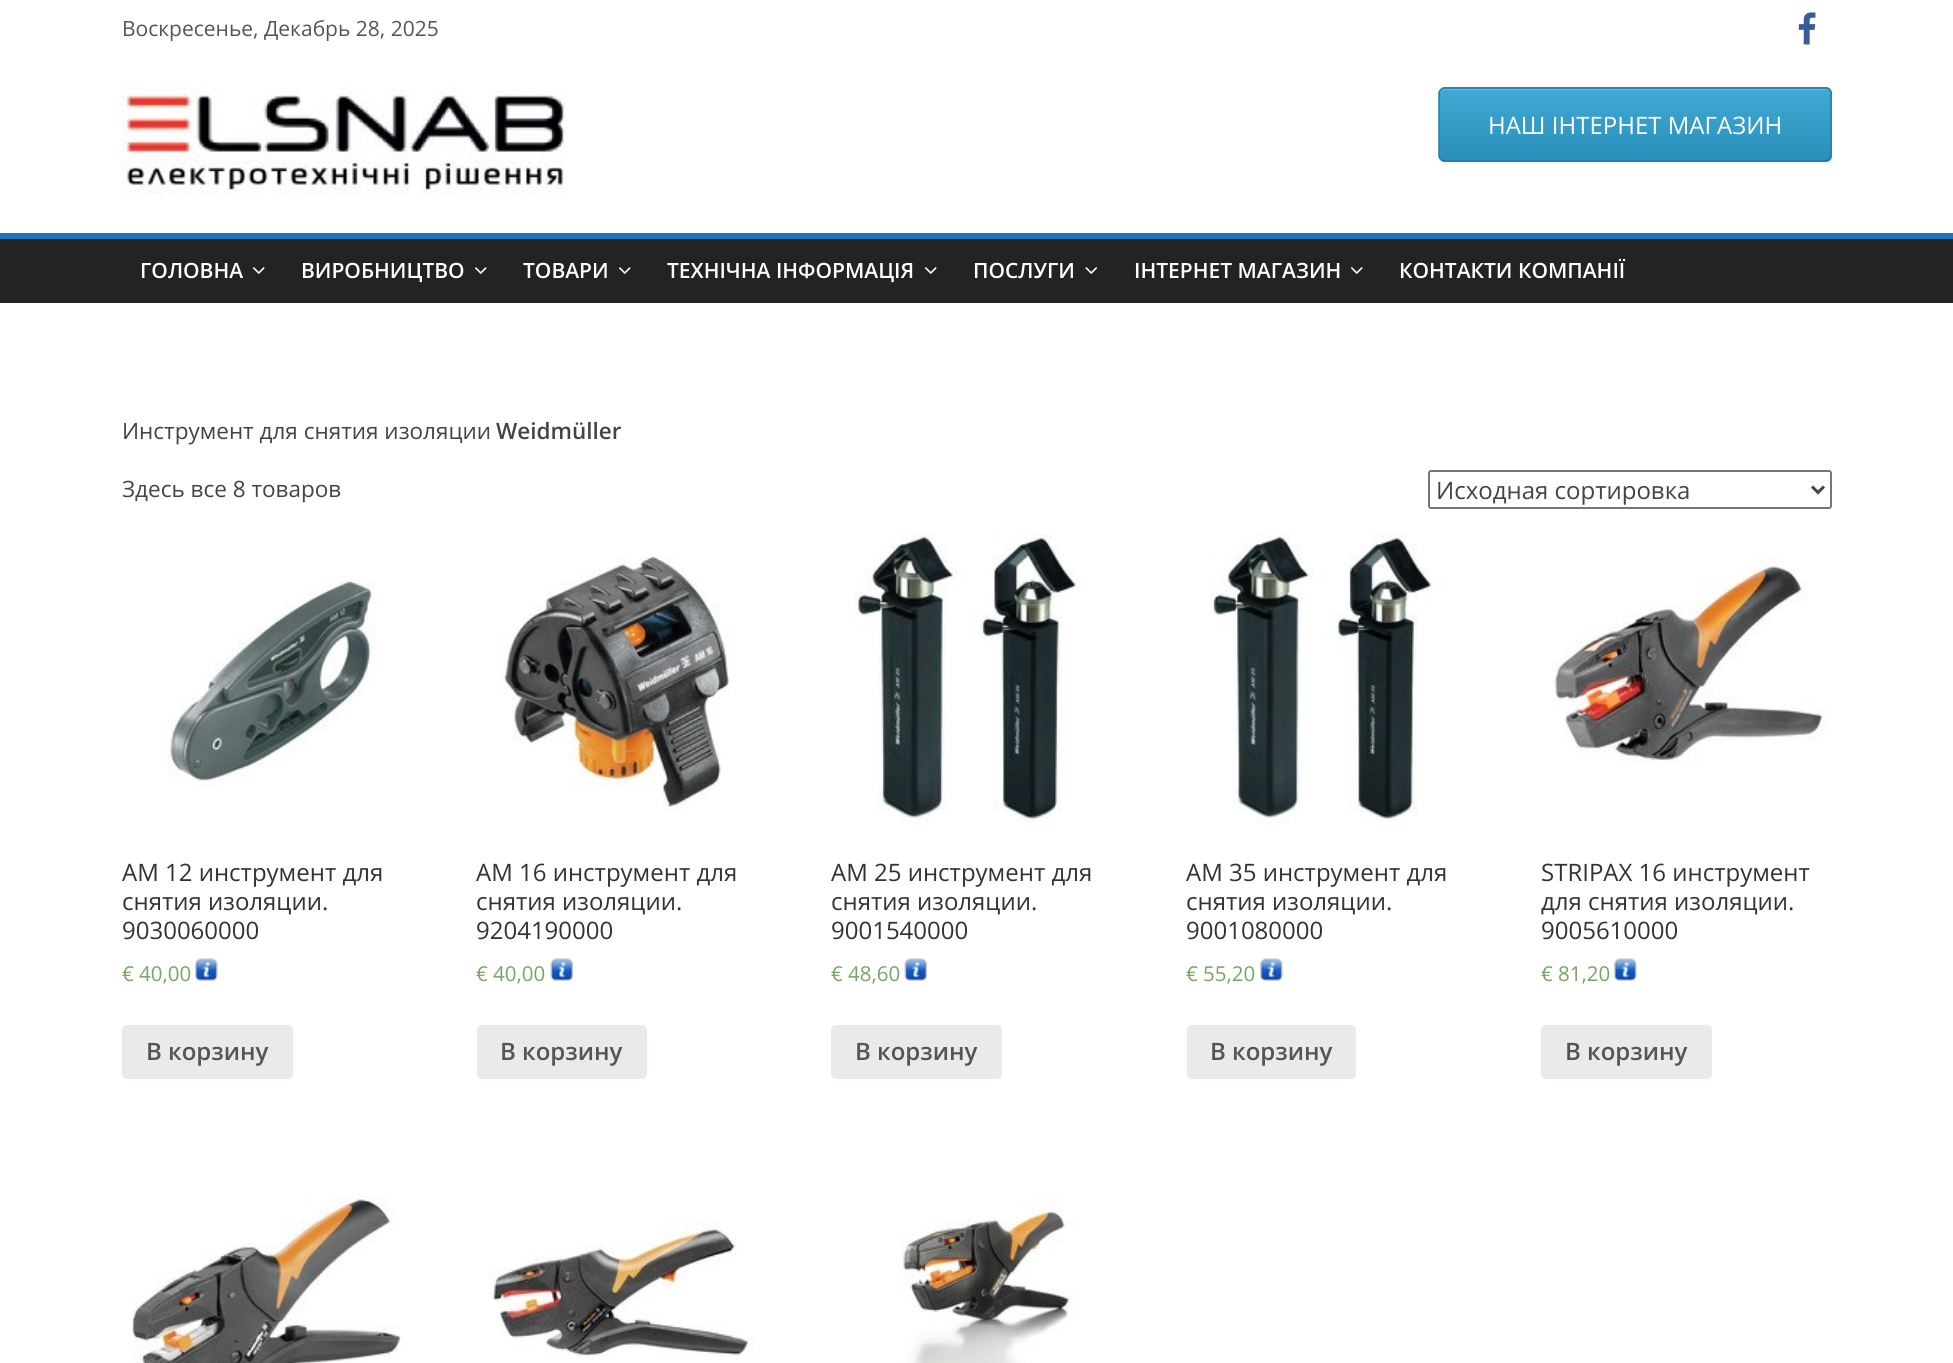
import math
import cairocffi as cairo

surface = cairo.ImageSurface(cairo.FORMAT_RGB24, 1953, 1363)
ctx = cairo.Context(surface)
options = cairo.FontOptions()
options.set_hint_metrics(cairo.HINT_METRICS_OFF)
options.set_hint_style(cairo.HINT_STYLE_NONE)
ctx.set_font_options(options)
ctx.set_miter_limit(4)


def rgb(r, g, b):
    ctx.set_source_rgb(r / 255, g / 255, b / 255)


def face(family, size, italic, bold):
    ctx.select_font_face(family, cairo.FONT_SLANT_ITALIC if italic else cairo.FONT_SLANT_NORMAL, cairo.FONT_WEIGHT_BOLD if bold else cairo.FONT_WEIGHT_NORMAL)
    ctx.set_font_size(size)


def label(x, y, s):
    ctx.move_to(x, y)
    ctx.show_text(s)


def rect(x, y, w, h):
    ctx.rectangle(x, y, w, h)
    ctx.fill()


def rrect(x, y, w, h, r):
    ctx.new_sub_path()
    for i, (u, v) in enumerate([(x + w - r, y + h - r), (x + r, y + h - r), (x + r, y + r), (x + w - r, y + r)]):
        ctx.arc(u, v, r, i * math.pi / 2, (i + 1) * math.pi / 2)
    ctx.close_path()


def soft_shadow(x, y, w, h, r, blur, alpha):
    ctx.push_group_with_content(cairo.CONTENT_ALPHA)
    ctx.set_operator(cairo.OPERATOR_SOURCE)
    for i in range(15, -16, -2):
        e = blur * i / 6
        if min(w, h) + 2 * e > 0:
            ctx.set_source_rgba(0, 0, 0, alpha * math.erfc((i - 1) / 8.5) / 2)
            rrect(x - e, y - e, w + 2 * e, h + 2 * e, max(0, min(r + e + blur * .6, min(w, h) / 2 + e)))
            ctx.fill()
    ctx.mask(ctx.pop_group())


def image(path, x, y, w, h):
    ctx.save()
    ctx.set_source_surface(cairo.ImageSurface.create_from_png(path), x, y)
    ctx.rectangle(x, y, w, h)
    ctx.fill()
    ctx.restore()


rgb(255, 255, 255)
ctx.paint()
face('Open Sans', 21, 0, 0)
rgb(85, 85, 85)
label(122, 36, 'Воскресенье, Декабрь 28, 2025')
image('image0.png', 1798, 12, 18, 33)
image('image1.png', 121, 87, 445, 108)
rgb(0, 0, 0)
soft_shadow(1439, 89, 393, 75, 6, 1.5, 0.07)
ctx.save()
rrect(1439, 87, 393, 75, 6)
ctx.clip()
gradient = cairo.LinearGradient(1440, 89, 1440, 17)
gradient.add_color_stop_rgba(0, 0.161, 0.561, 0.729, 1)
gradient.add_color_stop_rgba(1, 0.255, 0.663, 0.835, 1)
ctx.set_source(gradient)
rect(1439, 87, 393, 2)
gradient = cairo.LinearGradient(1440, 161, 1440, 89)
gradient.add_color_stop_rgba(0, 0.161, 0.561, 0.729, 1)
gradient.add_color_stop_rgba(1, 0.255, 0.663, 0.835, 1)
ctx.set_source(gradient)
rect(1439, 89, 393, 72)
gradient = cairo.LinearGradient(1440, 233, 1440, 161)
gradient.add_color_stop_rgba(0, 0.161, 0.561, 0.729, 1)
gradient.add_color_stop_rgba(1, 0.255, 0.663, 0.835, 1)
ctx.set_source(gradient)
rect(1439, 161, 393, 1)
ctx.restore()
rgb(103, 186, 221)
ctx.new_path()
ctx.move_to(1444, 90)
ctx.line_to(1826, 90)
ctx.curve_to(1828, 90, 1830, 92, 1830, 94)
ctx.curve_to(1830, 91, 1828, 89, 1825, 89)
ctx.line_to(1445, 89)
ctx.curve_to(1442, 89, 1440, 91, 1440, 94)
ctx.curve_to(1440, 92, 1442, 90, 1444, 90)
ctx.close_path()
ctx.fill()
ctx.new_path()
ctx.move_to(1441, 89.5)
ctx.curve_to(1442, 88.5, 1443, 88, 1444.5, 88)
ctx.line_to(1825.5, 88)
ctx.curve_to(1827, 88, 1828, 88.5, 1829, 89.5)
rgb(38, 133, 173)
ctx.set_line_width(1.5)
ctx.stroke()
ctx.new_path()
ctx.move_to(1829, 89.5)
ctx.curve_to(1830, 90.5, 1831, 91.5, 1831, 93)
ctx.line_to(1831, 156)
ctx.curve_to(1831, 157.5, 1830, 158.5, 1829, 159.5)
rgb(36, 127, 165)
ctx.stroke()
ctx.new_path()
ctx.move_to(1829, 159.5)
ctx.curve_to(1828, 160.5, 1827, 161, 1825.5, 161)
ctx.line_to(1444.5, 161)
ctx.curve_to(1443, 161, 1442, 160.5, 1441, 159.5)
rgb(34, 117, 152)
ctx.stroke()
ctx.new_path()
ctx.move_to(1441, 159.5)
ctx.curve_to(1440, 158.5, 1439, 157.5, 1439, 156)
ctx.line_to(1439, 93)
ctx.curve_to(1439, 91.5, 1440, 90.5, 1441, 89.5)
rgb(36, 127, 165)
ctx.stroke()
face('Open Sans', 24, 0, 0)
rgb(255, 255, 255)
label(1488, 134, 'НАШ ІНТЕРНЕТ МАГАЗИН')
rgb(35, 35, 35)
rect(0, 239, 1953, 64)
rgb(30, 115, 190)
rect(0, 233, 1953, 6)
face('Open Sans SemiBold', 21, 0, 0)
rgb(255, 255, 255)
label(140, 278, 'ГОЛОВНА')
image('image2.png', 253, 267, 12, 7)
label(301, 278, 'ВИРОБНИЦТВО')
image('image2.png', 475, 267, 12, 7)
label(523, 278, 'ТОВАРИ')
image('image2.png', 619, 267, 12, 7)
label(667, 278, 'ТЕХНІЧНА ІНФОРМАЦІЯ')
image('image2.png', 925, 267, 12, 7)
label(973, 278, 'ПОСЛУГИ')
image('image3.png', 1085, 267, 12, 7)
label(1134, 278, 'ІНТЕРНЕТ МАГАЗИН')
image('image2.png', 1351, 267, 12, 7)
label(1399, 278, 'КОНТАКТИ КОМПАНІЇ')
face('Open Sans', 22.5, 0, 0)
rgb(68, 68, 68)
label(122, 439, 'Инструмент для снятия изоляции')
face('Open Sans SemiBold', 22.5, 0, 0)
label(496, 439, 'Weidmüller')
face('Open Sans', 22.5, 0, 0)
label(122, 497, 'Здесь все 8 товаров')
rrect(1429, 471, 402, 37, 2)
rgb(118, 118, 118)
ctx.set_line_width(2)
ctx.stroke()
ctx.new_path()
ctx.move_to(1812, 486.5)
ctx.line_to(1818, 492.5)
ctx.line_to(1824, 486.5)
rgb(68, 68, 68)
ctx.set_line_width(3)
ctx.stroke()
face('Open Sans', 24, 0, 0)
label(1436, 499, 'Исходная сортировка')
image('image4.png', 168, 580, 208, 207)
rgb(51, 51, 51)
label(122, 881, 'AM 12 инструмент для')
label(122, 910, 'снятия изоляции.')
label(122, 939, '9030060000')
face('Open Sans', 20.5, 0, 0)
rgb(119, 164, 100)
label(122, 981, '€ 40,00')
image('image5.png', 195, 958, 23, 23)
rgb(235, 233, 235)
rrect(122, 1025, 171, 54, 5)
ctx.fill()
face('Open Sans SemiBold', 24, 0, 0)
rgb(85, 85, 85)
label(146, 1060, 'В корзину')
image('image6.png', 502, 556, 228, 256)
face('Open Sans', 24, 0, 0)
rgb(51, 51, 51)
label(476, 881, 'AM 16 инструмент для')
label(476, 910, 'снятия изоляции.')
label(476, 939, '9204190000')
face('Open Sans', 20.5, 0, 0)
rgb(119, 164, 100)
label(476, 981, '€ 40,00')
image('image7.png', 550, 958, 23, 23)
rgb(235, 233, 235)
rrect(477, 1025, 170, 54, 5)
ctx.fill()
face('Open Sans SemiBold', 24, 0, 0)
rgb(85, 85, 85)
label(500, 1060, 'В корзину')
image('image8.png', 854, 532, 232, 292)
face('Open Sans', 24, 0, 0)
rgb(51, 51, 51)
label(831, 881, 'AM 25 инструмент для')
label(831, 910, 'снятия изоляции.')
label(831, 939, '9001540000')
face('Open Sans', 20.5, 0, 0)
rgb(119, 164, 100)
label(831, 981, '€ 48,60')
image('image9.png', 904, 958, 23, 23)
rgb(235, 233, 235)
rrect(831, 1025, 171, 54, 5)
ctx.fill()
face('Open Sans SemiBold', 24, 0, 0)
rgb(85, 85, 85)
label(855, 1060, 'В корзину')
image('image10.png', 1210, 532, 231, 292)
face('Open Sans', 24, 0, 0)
rgb(51, 51, 51)
label(1186, 881, 'AM 35 инструмент для')
label(1186, 910, 'снятия изоляции.')
label(1186, 939, '9001080000')
face('Open Sans', 20.5, 0, 0)
rgb(119, 164, 100)
label(1186, 981, '€ 55,20')
image('image11.png', 1260, 958, 23, 23)
rgb(235, 233, 235)
rrect(1187, 1025, 169, 54, 5)
ctx.fill()
face('Open Sans SemiBold', 24, 0, 0)
rgb(85, 85, 85)
label(1210, 1060, 'В корзину')
image('image12.png', 1552, 555, 278, 210)
face('Open Sans', 24, 0, 0)
rgb(51, 51, 51)
label(1541, 881, 'STRIPAX 16 инструмент')
label(1541, 910, 'для снятия изоляции.')
label(1541, 939, '9005610000')
face('Open Sans', 20.5, 0, 0)
rgb(119, 164, 100)
label(1541, 981, '€ 81,20')
image('image5.png', 1614, 958, 23, 23)
rgb(235, 233, 235)
rrect(1541, 1025, 171, 54, 5)
ctx.fill()
face('Open Sans SemiBold', 24, 0, 0)
rgb(85, 85, 85)
label(1565, 1060, 'В корзину')
image('image13.png', 131, 1196, 274, 167)
image('image14.png', 489, 1220, 266, 139)
image('image15.png', 900, 1197, 174, 166)
surface.write_to_png('render.png')
